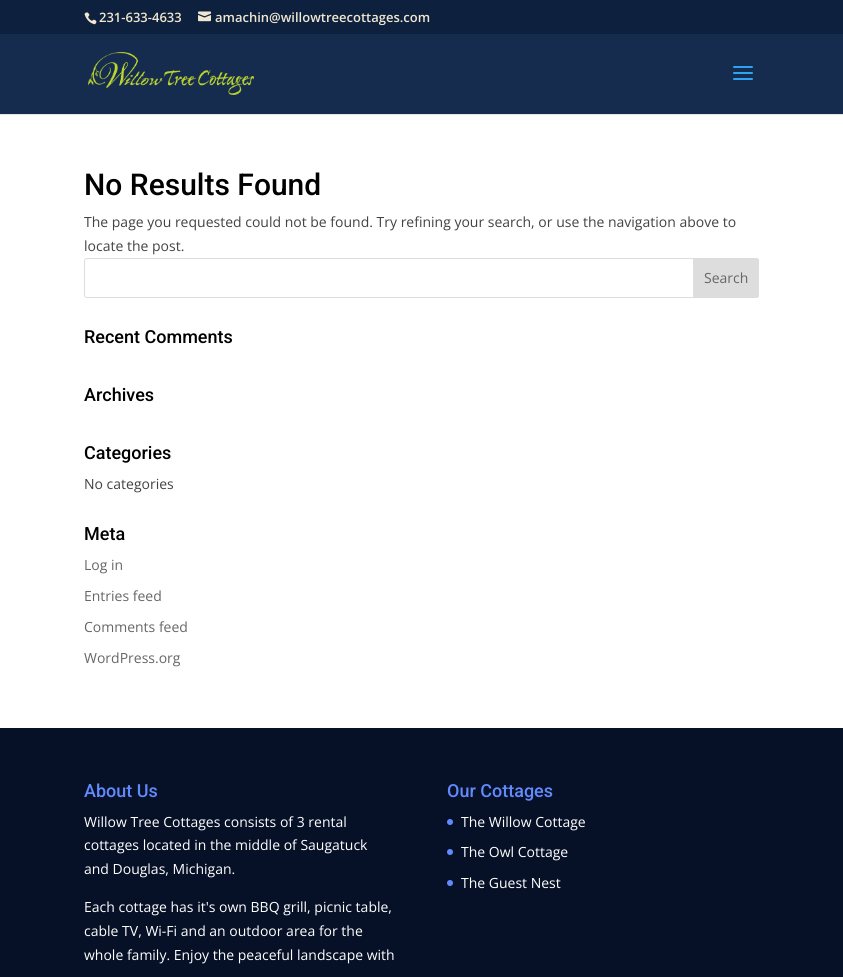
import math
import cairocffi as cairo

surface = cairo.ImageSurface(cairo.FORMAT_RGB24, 843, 977)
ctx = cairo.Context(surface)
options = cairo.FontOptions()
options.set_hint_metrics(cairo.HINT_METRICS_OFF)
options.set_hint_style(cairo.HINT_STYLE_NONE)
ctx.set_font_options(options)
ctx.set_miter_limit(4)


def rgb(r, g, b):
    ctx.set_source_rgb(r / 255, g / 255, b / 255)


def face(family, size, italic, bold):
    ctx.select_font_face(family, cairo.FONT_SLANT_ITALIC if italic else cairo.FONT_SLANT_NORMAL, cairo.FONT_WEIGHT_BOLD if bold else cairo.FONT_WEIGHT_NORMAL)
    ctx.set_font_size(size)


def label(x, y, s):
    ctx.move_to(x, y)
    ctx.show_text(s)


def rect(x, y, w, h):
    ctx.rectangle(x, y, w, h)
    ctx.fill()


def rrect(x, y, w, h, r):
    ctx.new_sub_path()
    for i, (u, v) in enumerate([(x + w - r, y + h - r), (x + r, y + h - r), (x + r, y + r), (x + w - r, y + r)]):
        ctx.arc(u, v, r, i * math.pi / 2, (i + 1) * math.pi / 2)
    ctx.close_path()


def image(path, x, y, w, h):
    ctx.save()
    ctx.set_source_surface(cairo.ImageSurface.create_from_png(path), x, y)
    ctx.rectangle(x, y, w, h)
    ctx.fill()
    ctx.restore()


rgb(255, 255, 255)
ctx.paint()
rgb(13, 32, 62)
rect(0, 0, 843, 34)
image('image0.png', 84, 12, 13, 13)
face('Open Sans SemiBold', 13, 0, 0)
rgb(240, 231, 208)
label(99, 22, '231-633-4633')
image('image1.png', 198, 11, 13, 11)
label(215, 22, 'amachin@willowtreecottages.com')
rgb(230, 230, 230)
rect(0, 114, 843, 1)
rgb(22, 44, 79)
rect(0, 34, 843, 80)
image('image2.png', 88, 52, 166, 43)
image('image3.png', 733, 66, 20, 14)
face('Roboto Medium', 30, 0, 0)
rgb(0, 0, 0)
label(84, 195, 'No Results Found')
face('Open Sans', 14, 0, 0)
rgb(66, 66, 66)
label(84, 227, 'The page you requested could not be found. Try refining your search, or use the navigation above to')
label(84, 251, 'locate the post.')
rrect(84.5, 258.5, 674, 39, 2.5)
rgb(221, 221, 221)
ctx.set_line_width(1)
ctx.stroke()
ctx.new_path()
ctx.move_to(693.5, 258.5)
ctx.line_to(756, 258.5)
ctx.curve_to(757.5, 258.5, 758.5, 259.5, 758.5, 261)
ctx.line_to(758.5, 295)
ctx.curve_to(758.5, 296.5, 757.5, 297.5, 756, 297.5)
ctx.line_to(693.5, 297.5)
ctx.close_path()
ctx.fill_preserve()
ctx.stroke()
rgb(102, 102, 102)
label(704, 283, 'Search')
face('Roboto Medium', 18, 0, 0)
rgb(0, 0, 0)
label(84, 343, 'Recent Comments')
label(84, 401, 'Archives')
label(84, 459, 'Categories')
face('Open Sans', 14, 0, 0)
rgb(66, 66, 66)
label(84, 489, 'No categories')
face('Roboto Medium', 18, 0, 0)
rgb(0, 0, 0)
label(84, 540, 'Meta')
face('Open Sans', 14, 0, 0)
rgb(102, 102, 102)
label(84, 570, 'Log in')
label(84, 601, 'Entries feed')
label(84, 632, 'Comments feed')
label(84, 663, 'WordPress.org')
rgb(6, 16, 38)
rect(0, 728, 843, 249)
face('Roboto Medium', 18, 0, 0)
rgb(98, 138, 255)
label(84, 797, 'About Us')
face('Open Sans', 14, 0, 0)
rgb(255, 255, 255)
label(84, 827, 'Willow Tree Cottages consists of 3 rental')
label(84, 850, 'cottages located in the middle of Saugatuck')
label(84, 874, 'and Douglas, Michigan.')
label(84, 912, 'Each cottage has it\'s own BBQ grill, picnic table,')
label(84, 936, 'cable TV, Wi-Fi and an outdoor area for the')
label(84, 960, 'whole family. Enjoy the peaceful landscape with')
face('Roboto Medium', 18, 0, 0)
rgb(98, 138, 255)
label(447, 797, 'Our Cottages')
ctx.new_path()
ctx.arc(450, 822, 3, 0, 2 * math.pi)
ctx.fill()
face('Open Sans', 14, 0, 0)
rgb(255, 255, 255)
label(461, 827, 'The Willow Cottage')
rgb(98, 138, 255)
ctx.new_path()
ctx.arc(450, 852, 3, 0, 2 * math.pi)
ctx.fill()
rgb(255, 255, 255)
label(461, 857, 'The Owl Cottage')
rgb(98, 138, 255)
ctx.new_path()
ctx.arc(450, 883, 3, 0, 2 * math.pi)
ctx.fill()
rgb(255, 255, 255)
label(461, 888, 'The Guest Nest')
surface.write_to_png('render.png')
